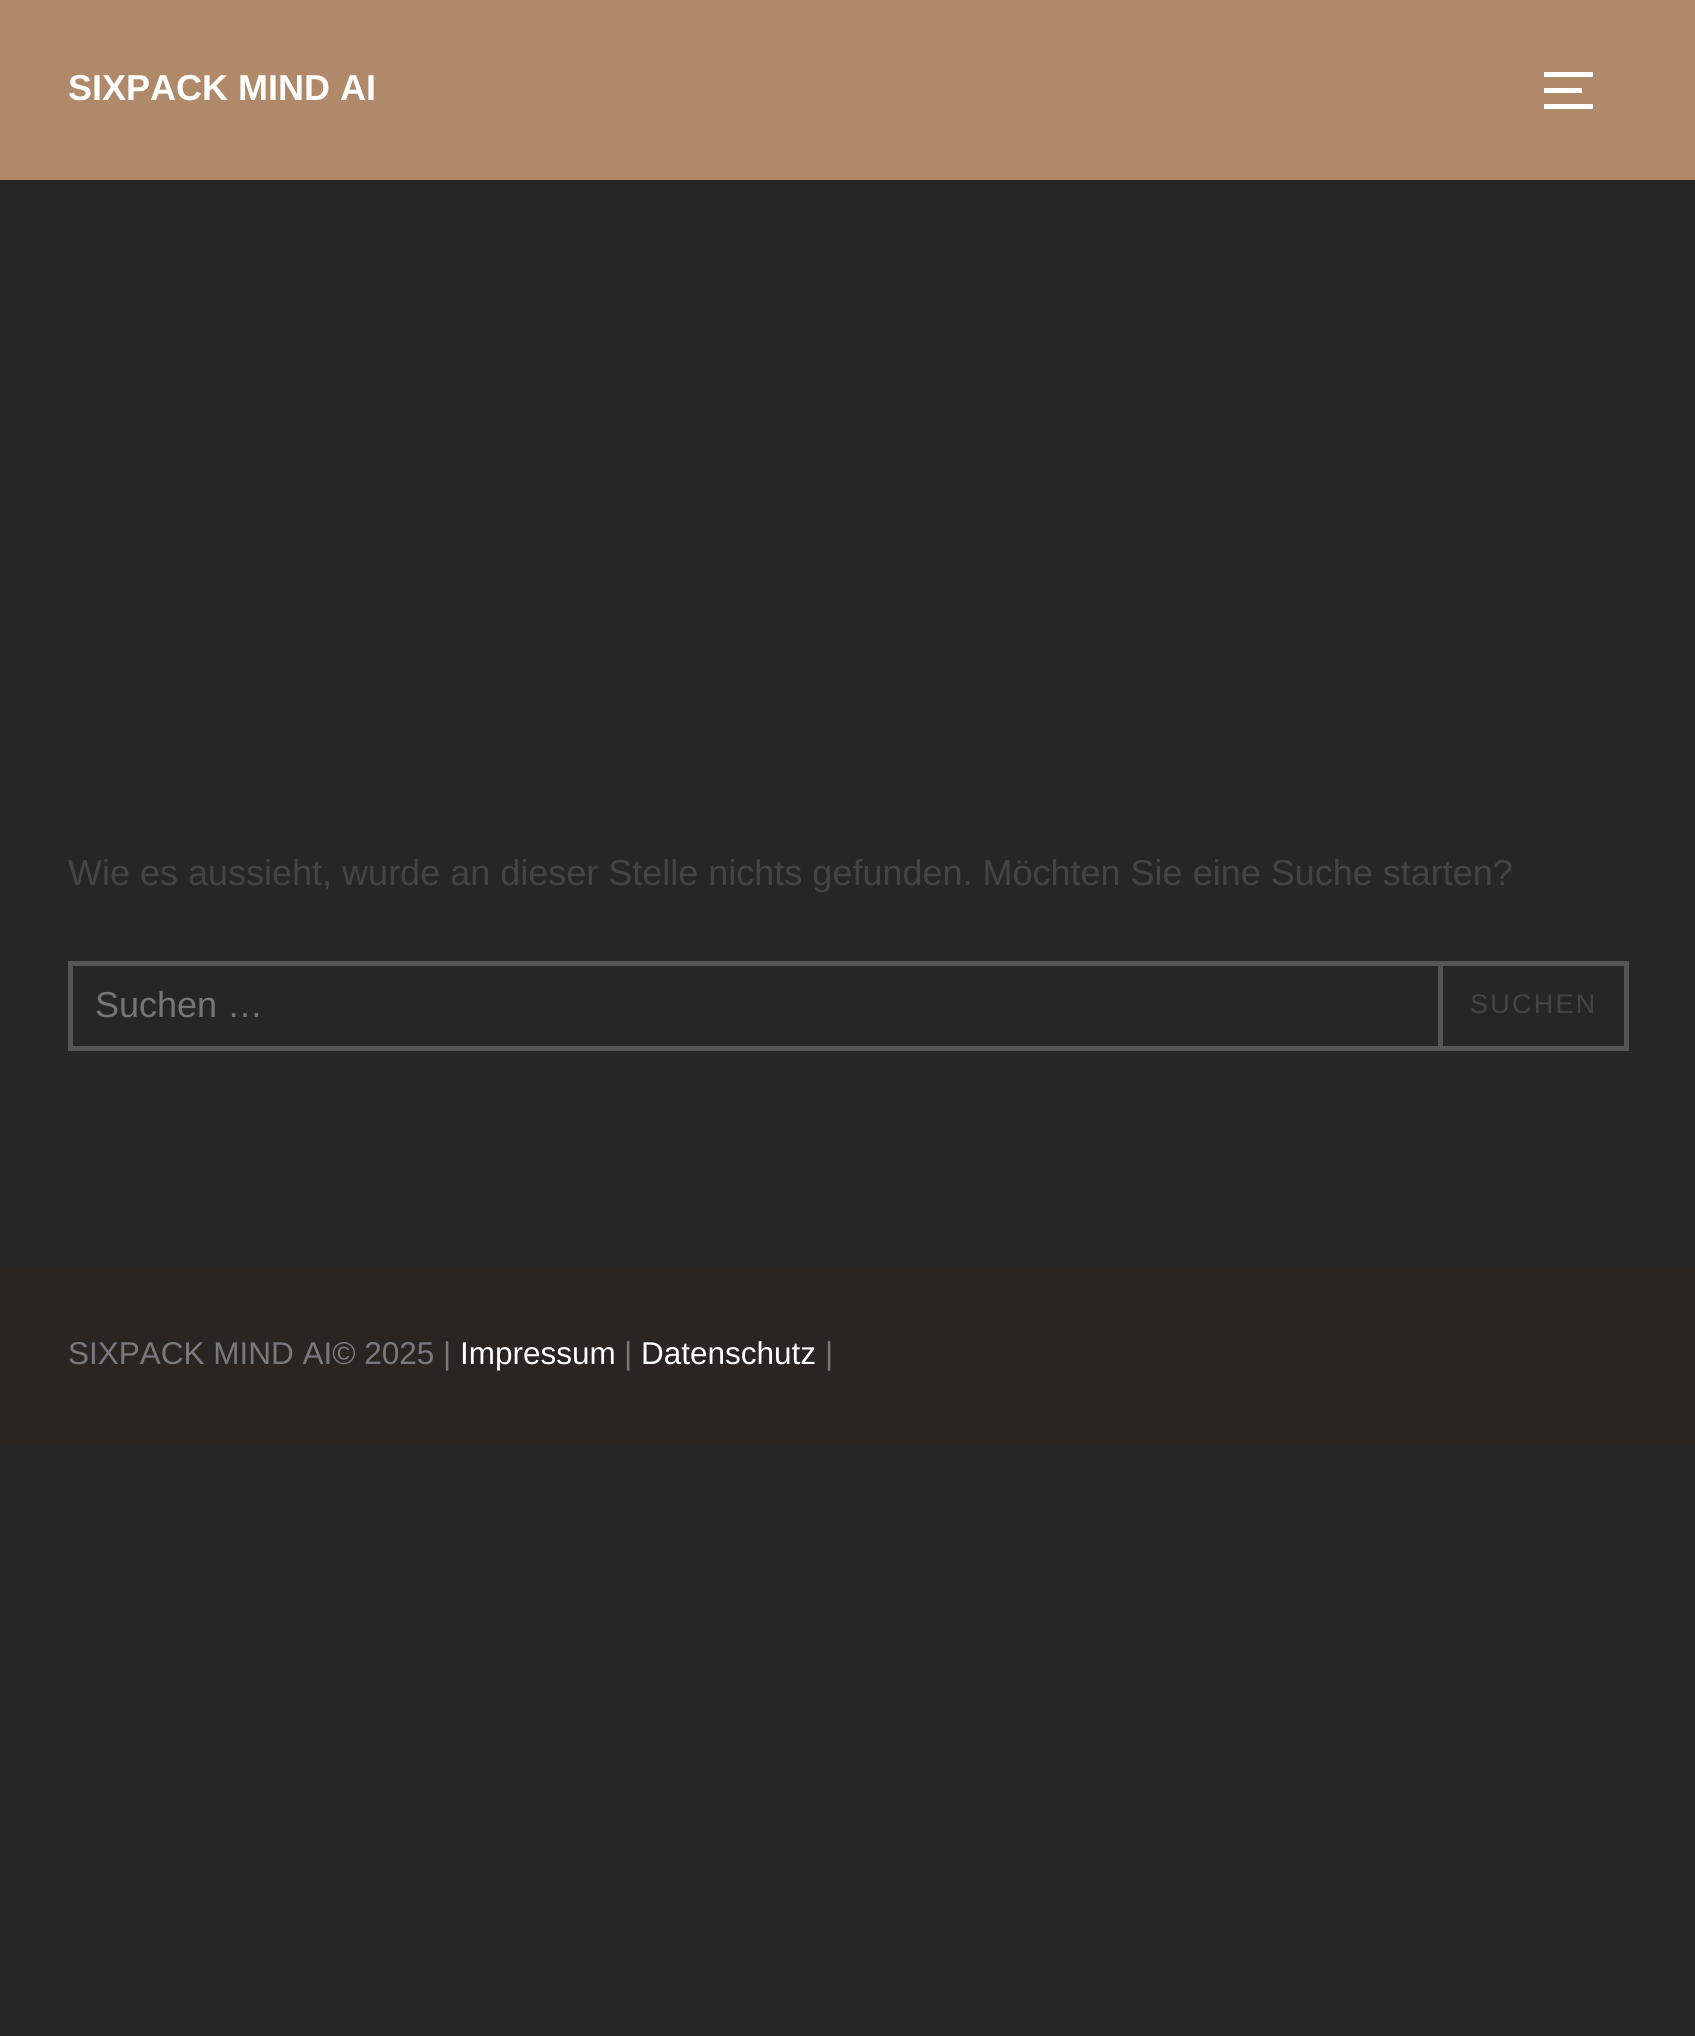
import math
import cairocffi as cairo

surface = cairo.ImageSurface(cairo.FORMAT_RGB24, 1695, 2036)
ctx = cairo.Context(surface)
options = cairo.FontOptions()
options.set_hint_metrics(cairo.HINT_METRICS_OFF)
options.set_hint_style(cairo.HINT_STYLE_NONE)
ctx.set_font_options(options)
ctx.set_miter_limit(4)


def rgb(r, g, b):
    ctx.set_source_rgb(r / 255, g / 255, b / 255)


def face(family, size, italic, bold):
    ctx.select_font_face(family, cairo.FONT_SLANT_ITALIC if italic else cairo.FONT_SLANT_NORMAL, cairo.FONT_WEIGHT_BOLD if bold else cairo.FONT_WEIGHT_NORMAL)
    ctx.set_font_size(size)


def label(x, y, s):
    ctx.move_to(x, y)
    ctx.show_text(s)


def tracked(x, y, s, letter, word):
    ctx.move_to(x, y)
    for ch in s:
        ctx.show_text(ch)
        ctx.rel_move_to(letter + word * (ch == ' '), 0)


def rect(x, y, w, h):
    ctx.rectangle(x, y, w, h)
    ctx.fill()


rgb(38, 38, 38)
ctx.paint()
rgb(176, 137, 104)
rect(0, 0, 1695, 180)
face('Liberation Sans', 36, 0, 1)
rgb(255, 255, 255)
label(68, 100, 'SIXPACK MIND AI')
rect(1544, 72, 49, 5)
rect(1544, 88, 38, 5)
rect(1544, 104, 49, 5)
face('Liberation Sans', 36, 0, 0)
rgb(68, 68, 68)
label(68, 885, 'Wie es aussieht, wurde an dieser Stelle nichts gefunden. Möchten Sie eine Suche starten?')
ctx.rectangle(70.5, 963.5, 1556, 85)
rgb(86, 85, 85)
ctx.set_line_width(5)
ctx.stroke()
rgb(117, 117, 117)
label(95, 1017, 'Suchen …')
ctx.rectangle(1440.5, 963.5, 186, 85)
rgb(86, 85, 85)
ctx.stroke()
face('Liberation Sans', 27, 0, 0)
rgb(68, 68, 68)
tracked(1470, 1013, 'SUCHEN', 2.25, 0)
rgb(42, 37, 32)
rect(0, 1267, 1695, 175)
face('Liberation Sans', 31.5, 0, 0)
rgb(120, 120, 127)
label(68, 1364, 'SIXPACK MIND AI© 2025 |')
rgb(255, 255, 255)
label(460, 1364, 'Impressum')
rgb(120, 120, 127)
label(624, 1364, '|')
rgb(255, 255, 255)
label(641, 1364, 'Datenschutz')
rgb(120, 120, 127)
label(825, 1364, '|')
surface.write_to_png('render.png')
